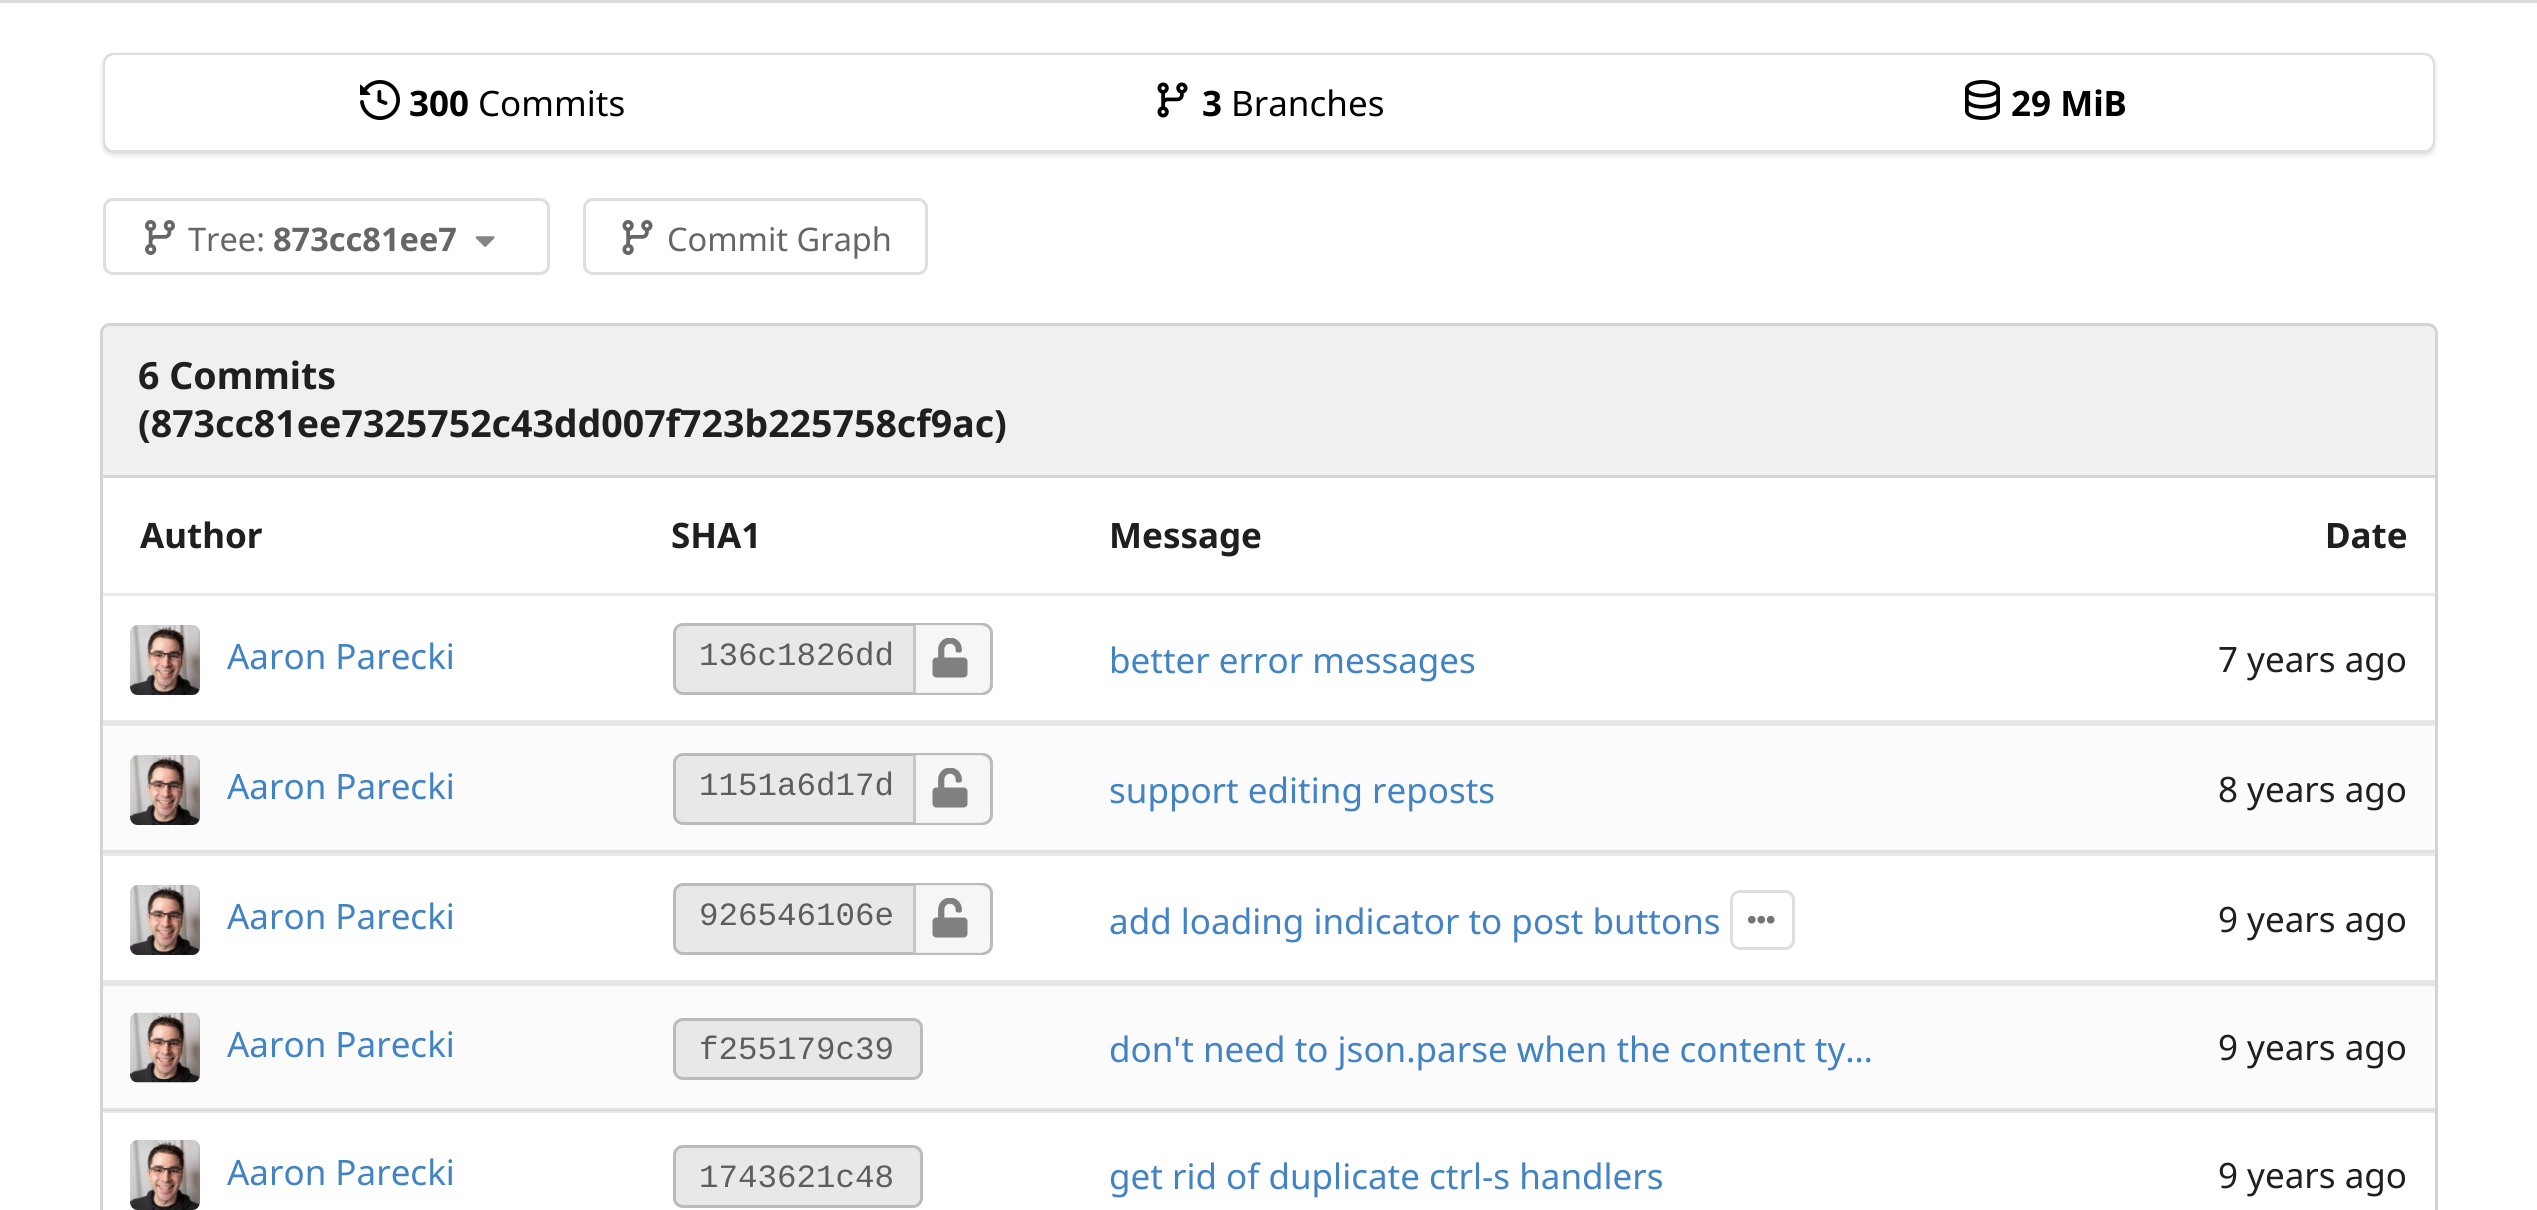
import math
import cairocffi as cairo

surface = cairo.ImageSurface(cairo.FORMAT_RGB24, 2537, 1210)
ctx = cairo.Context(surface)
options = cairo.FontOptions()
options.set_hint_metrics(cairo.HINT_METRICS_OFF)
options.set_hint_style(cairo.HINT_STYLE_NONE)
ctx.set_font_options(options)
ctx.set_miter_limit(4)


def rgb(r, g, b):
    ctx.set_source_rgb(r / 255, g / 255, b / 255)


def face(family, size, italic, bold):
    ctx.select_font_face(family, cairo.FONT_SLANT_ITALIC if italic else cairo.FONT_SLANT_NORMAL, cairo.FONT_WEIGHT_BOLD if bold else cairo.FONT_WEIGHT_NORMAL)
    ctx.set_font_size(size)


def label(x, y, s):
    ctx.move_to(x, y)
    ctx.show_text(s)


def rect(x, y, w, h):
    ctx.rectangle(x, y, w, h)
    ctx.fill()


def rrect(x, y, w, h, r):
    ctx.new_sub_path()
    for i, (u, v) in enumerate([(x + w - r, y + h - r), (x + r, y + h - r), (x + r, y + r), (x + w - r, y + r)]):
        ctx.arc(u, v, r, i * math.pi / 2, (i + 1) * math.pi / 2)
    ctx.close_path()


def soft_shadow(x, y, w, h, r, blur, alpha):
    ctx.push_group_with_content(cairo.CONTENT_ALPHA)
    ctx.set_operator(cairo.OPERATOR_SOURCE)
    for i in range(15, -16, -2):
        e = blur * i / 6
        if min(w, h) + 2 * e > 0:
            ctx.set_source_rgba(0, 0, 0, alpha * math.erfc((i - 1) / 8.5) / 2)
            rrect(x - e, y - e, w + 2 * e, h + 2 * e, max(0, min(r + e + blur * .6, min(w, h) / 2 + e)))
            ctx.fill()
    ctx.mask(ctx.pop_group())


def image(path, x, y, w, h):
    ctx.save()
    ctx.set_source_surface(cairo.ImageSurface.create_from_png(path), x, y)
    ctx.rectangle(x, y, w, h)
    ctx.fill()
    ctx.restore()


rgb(255, 255, 255)
ctx.paint()
rgb(233, 233, 233)
rect(103, 1111, 2332, 2)
rgb(210, 211, 211)
rect(103, 1110, 2332, 1)
rgb(218, 218, 218)
rect(0, 0, 2537, 3)
ctx.save()
ctx.set_fill_rule(cairo.FILL_RULE_EVEN_ODD)
ctx.new_path()
ctx.move_to(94, 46)
ctx.line_to(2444, 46)
ctx.line_to(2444, 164)
ctx.line_to(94, 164)
ctx.close_path()
ctx.move_to(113, 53)
ctx.line_to(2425, 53)
ctx.curve_to(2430.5, 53, 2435, 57.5, 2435, 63)
ctx.line_to(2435, 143)
ctx.curve_to(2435, 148.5, 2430.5, 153, 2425, 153)
ctx.line_to(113, 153)
ctx.curve_to(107.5, 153, 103, 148.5, 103, 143)
ctx.line_to(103, 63)
ctx.curve_to(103, 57.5, 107.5, 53, 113, 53)
ctx.close_path()
ctx.clip()
rgb(34, 36, 38)
soft_shadow(103, 55, 2332, 100, 10, 2.5, 0.15)
ctx.restore()
rrect(104.5, 54.5, 2329, 97, 8.5)
ctx.set_source_rgba(0.133, 0.141, 0.149, 0.15)
ctx.set_line_width(3)
ctx.stroke()
rgb(255, 255, 255)
rrect(105, 55, 2328, 95, 10)
ctx.fill()
image('image0.png', 360, 80, 40, 40)
face('Noto Sans', 35, 0, 1)
rgb(0, 0, 0)
label(409, 116, '300')
face('Noto Sans', 35, 0, 0)
label(478, 116, 'Commits')
image('image1.png', 1157, 82, 31, 36)
face('Noto Sans', 35, 0, 1)
label(1202, 116, '3')
face('Noto Sans', 35, 0, 0)
label(1231, 116, 'Branches')
image('image2.png', 1965, 80, 35, 40)
face('Noto Sans', 35, 0, 1)
label(2011, 116, '29 MiB')
rrect(104.5, 199.5, 444, 74, 8.5)
rgb(222, 222, 222)
ctx.stroke()
image('image3.png', 145, 220, 30, 35)
face('Noto Sans', 32.5, 0, 0)
rgb(102, 102, 102)
label(188, 251, 'Tree:')
face('Noto Sans', 32.5, 0, 1)
label(273, 251, '873cc81ee7')
image('image4.png', 475, 236, 20, 11)
rrect(584.5, 199.5, 342, 74, 8.5)
rgb(222, 222, 222)
ctx.stroke()
image('image5.png', 622, 220, 31, 35)
face('Noto Sans', 32.5, 0, 0)
rgb(102, 102, 102)
label(667, 251, 'Commit Graph')
rgb(240, 240, 240)
ctx.new_path()
ctx.move_to(110, 324.5)
ctx.line_to(2428, 324.5)
ctx.curve_to(2432.5, 324.5, 2436.5, 328.5, 2436.5, 333)
ctx.line_to(2436.5, 476.5)
ctx.line_to(101.5, 476.5)
ctx.line_to(101.5, 333)
ctx.curve_to(101.5, 328.5, 105.5, 324.5, 110, 324.5)
ctx.close_path()
ctx.fill_preserve()
rgb(212, 212, 213)
ctx.stroke()
face('Noto Sans', 37.5, 0, 1)
rgb(31, 31, 31)
label(138, 389, '6 Commits')
label(138, 437, '(873cc81ee7325752c43dd007f723b225758cf9ac)')
rgb(212, 212, 213)
rect(2435, 478, 3, 732)
rect(100, 478, 3, 732)
rgb(233, 233, 233)
rect(103, 593, 2332, 3)
face('Noto Sans', 35, 0, 1)
rgb(31, 31, 31)
label(140, 548, 'Author')
label(671, 548, 'SHA1')
label(1109, 548, 'Message')
label(2325, 548, 'Date')
rgb(230, 230, 230)
rect(103, 720, 2332, 3)
image('image6.png', 130, 625, 70, 70)
face('Noto Sans', 35, 0, 0)
rgb(65, 131, 196)
label(227, 669, 'Aaron Parecki')
rgb(232, 232, 232)
rrect(674.5, 624.5, 317, 69, 8.5)
ctx.fill_preserve()
rgb(187, 187, 187)
ctx.stroke()
face('Liberation Mono', 32.5, 0, 0)
rgb(93, 93, 93)
label(699, 665, '136c1826dd')
ctx.set_source_rgba(0.98, 0.98, 0.98, 0.8)
ctx.new_path()
ctx.move_to(913, 625)
ctx.line_to(980, 625)
ctx.curve_to(985.5, 625, 990, 629.5, 990, 635)
ctx.line_to(990, 683)
ctx.curve_to(990, 688.5, 985.5, 693, 980, 693)
ctx.line_to(913, 693)
ctx.close_path()
ctx.fill()
ctx.set_source_rgba(0.733, 0.733, 0.733, 0.8)
rect(913, 625, 3, 68)
image('image7.png', 932, 638, 36, 40)
face('Noto Sans', 35, 0, 0)
rgb(65, 131, 196)
label(1109, 673, 'better error messages')
rgb(31, 31, 31)
label(2218, 672, '7 years ago')
rgb(251, 251, 251)
rect(103, 726, 2332, 124)
rgb(226, 226, 226)
rect(103, 850, 2332, 3)
rgb(229, 230, 230)
rect(103, 723, 2332, 3)
image('image8.png', 130, 755, 70, 70)
rgb(65, 131, 196)
label(227, 799, 'Aaron Parecki')
rgb(232, 232, 232)
rrect(674.5, 754.5, 317, 69, 8.5)
ctx.fill_preserve()
rgb(187, 187, 187)
ctx.stroke()
face('Liberation Mono', 32.5, 0, 0)
rgb(93, 93, 93)
label(699, 795, '1151a6d17d')
ctx.set_source_rgba(0.98, 0.98, 0.98, 0.8)
ctx.new_path()
ctx.move_to(913, 755)
ctx.line_to(980, 755)
ctx.curve_to(985.5, 755, 990, 759.5, 990, 765)
ctx.line_to(990, 813)
ctx.curve_to(990, 818.5, 985.5, 823, 980, 823)
ctx.line_to(913, 823)
ctx.close_path()
ctx.fill()
ctx.set_source_rgba(0.733, 0.733, 0.733, 0.8)
rect(913, 755, 3, 68)
image('image7.png', 932, 768, 36, 40)
face('Noto Sans', 35, 0, 0)
rgb(65, 131, 196)
label(1109, 803, 'support editing reposts')
rgb(31, 31, 31)
label(2218, 802, '8 years ago')
rgb(230, 230, 230)
rect(103, 980, 2332, 3)
rgb(233, 233, 233)
rect(103, 853, 2332, 3)
image('image9.png', 130, 885, 70, 70)
rgb(65, 131, 196)
label(227, 929, 'Aaron Parecki')
rgb(232, 232, 232)
rrect(674.5, 884.5, 317, 69, 8.5)
ctx.fill_preserve()
rgb(187, 187, 187)
ctx.stroke()
face('Liberation Mono', 32.5, 0, 0)
rgb(93, 93, 93)
label(699, 925, '926546106e')
ctx.set_source_rgba(0.98, 0.98, 0.98, 0.8)
ctx.new_path()
ctx.move_to(913, 885)
ctx.line_to(980, 885)
ctx.curve_to(985.5, 885, 990, 889.5, 990, 895)
ctx.line_to(990, 943)
ctx.curve_to(990, 948.5, 985.5, 953, 980, 953)
ctx.line_to(913, 953)
ctx.close_path()
ctx.fill()
ctx.set_source_rgba(0.733, 0.733, 0.733, 0.8)
rect(913, 885, 3, 68)
image('image7.png', 932, 898, 36, 40)
face('Noto Sans', 35, 0, 0)
rgb(65, 131, 196)
label(1109, 934, 'add loading indicator to post buttons')
rrect(1731.5, 891.5, 62, 57, 8.5)
rgb(222, 222, 222)
ctx.stroke()
image('image10.png', 1748, 915, 27, 9)
rgb(31, 31, 31)
label(2218, 932, '9 years ago')
rgb(251, 251, 251)
rect(103, 986, 2332, 122)
rgb(226, 226, 226)
rect(103, 1108, 2332, 2)
rgb(229, 230, 230)
rect(103, 983, 2332, 3)
image('image11.png', 130, 1012, 70, 71)
rgb(65, 131, 196)
label(227, 1057, 'Aaron Parecki')
rgb(232, 232, 232)
rrect(674.5, 1019.5, 247, 59, 8.5)
ctx.fill_preserve()
rgb(187, 187, 187)
ctx.stroke()
face('Liberation Mono', 32.5, 0, 0)
rgb(93, 93, 93)
label(699, 1059, 'f255179c39')
face('Noto Sans', 35, 0, 0)
rgb(65, 131, 196)
label(1109, 1062, 'don\'t need to json.parse when the content ty…')
rgb(31, 31, 31)
label(2218, 1060, '9 years ago')
image('image12.png', 130, 1140, 70, 70)
rgb(65, 131, 196)
label(227, 1185, 'Aaron Parecki')
rgb(232, 232, 232)
rrect(674.5, 1146.5, 247, 60, 8.5)
ctx.fill_preserve()
rgb(187, 187, 187)
ctx.stroke()
face('Liberation Mono', 32.5, 0, 0)
rgb(93, 93, 93)
label(699, 1187, '1743621c48')
face('Noto Sans', 35, 0, 0)
rgb(65, 131, 196)
label(1109, 1189, 'get rid of duplicate ctrl-s handlers')
rgb(31, 31, 31)
label(2218, 1188, '9 years ago')
surface.write_to_png('render.png')
